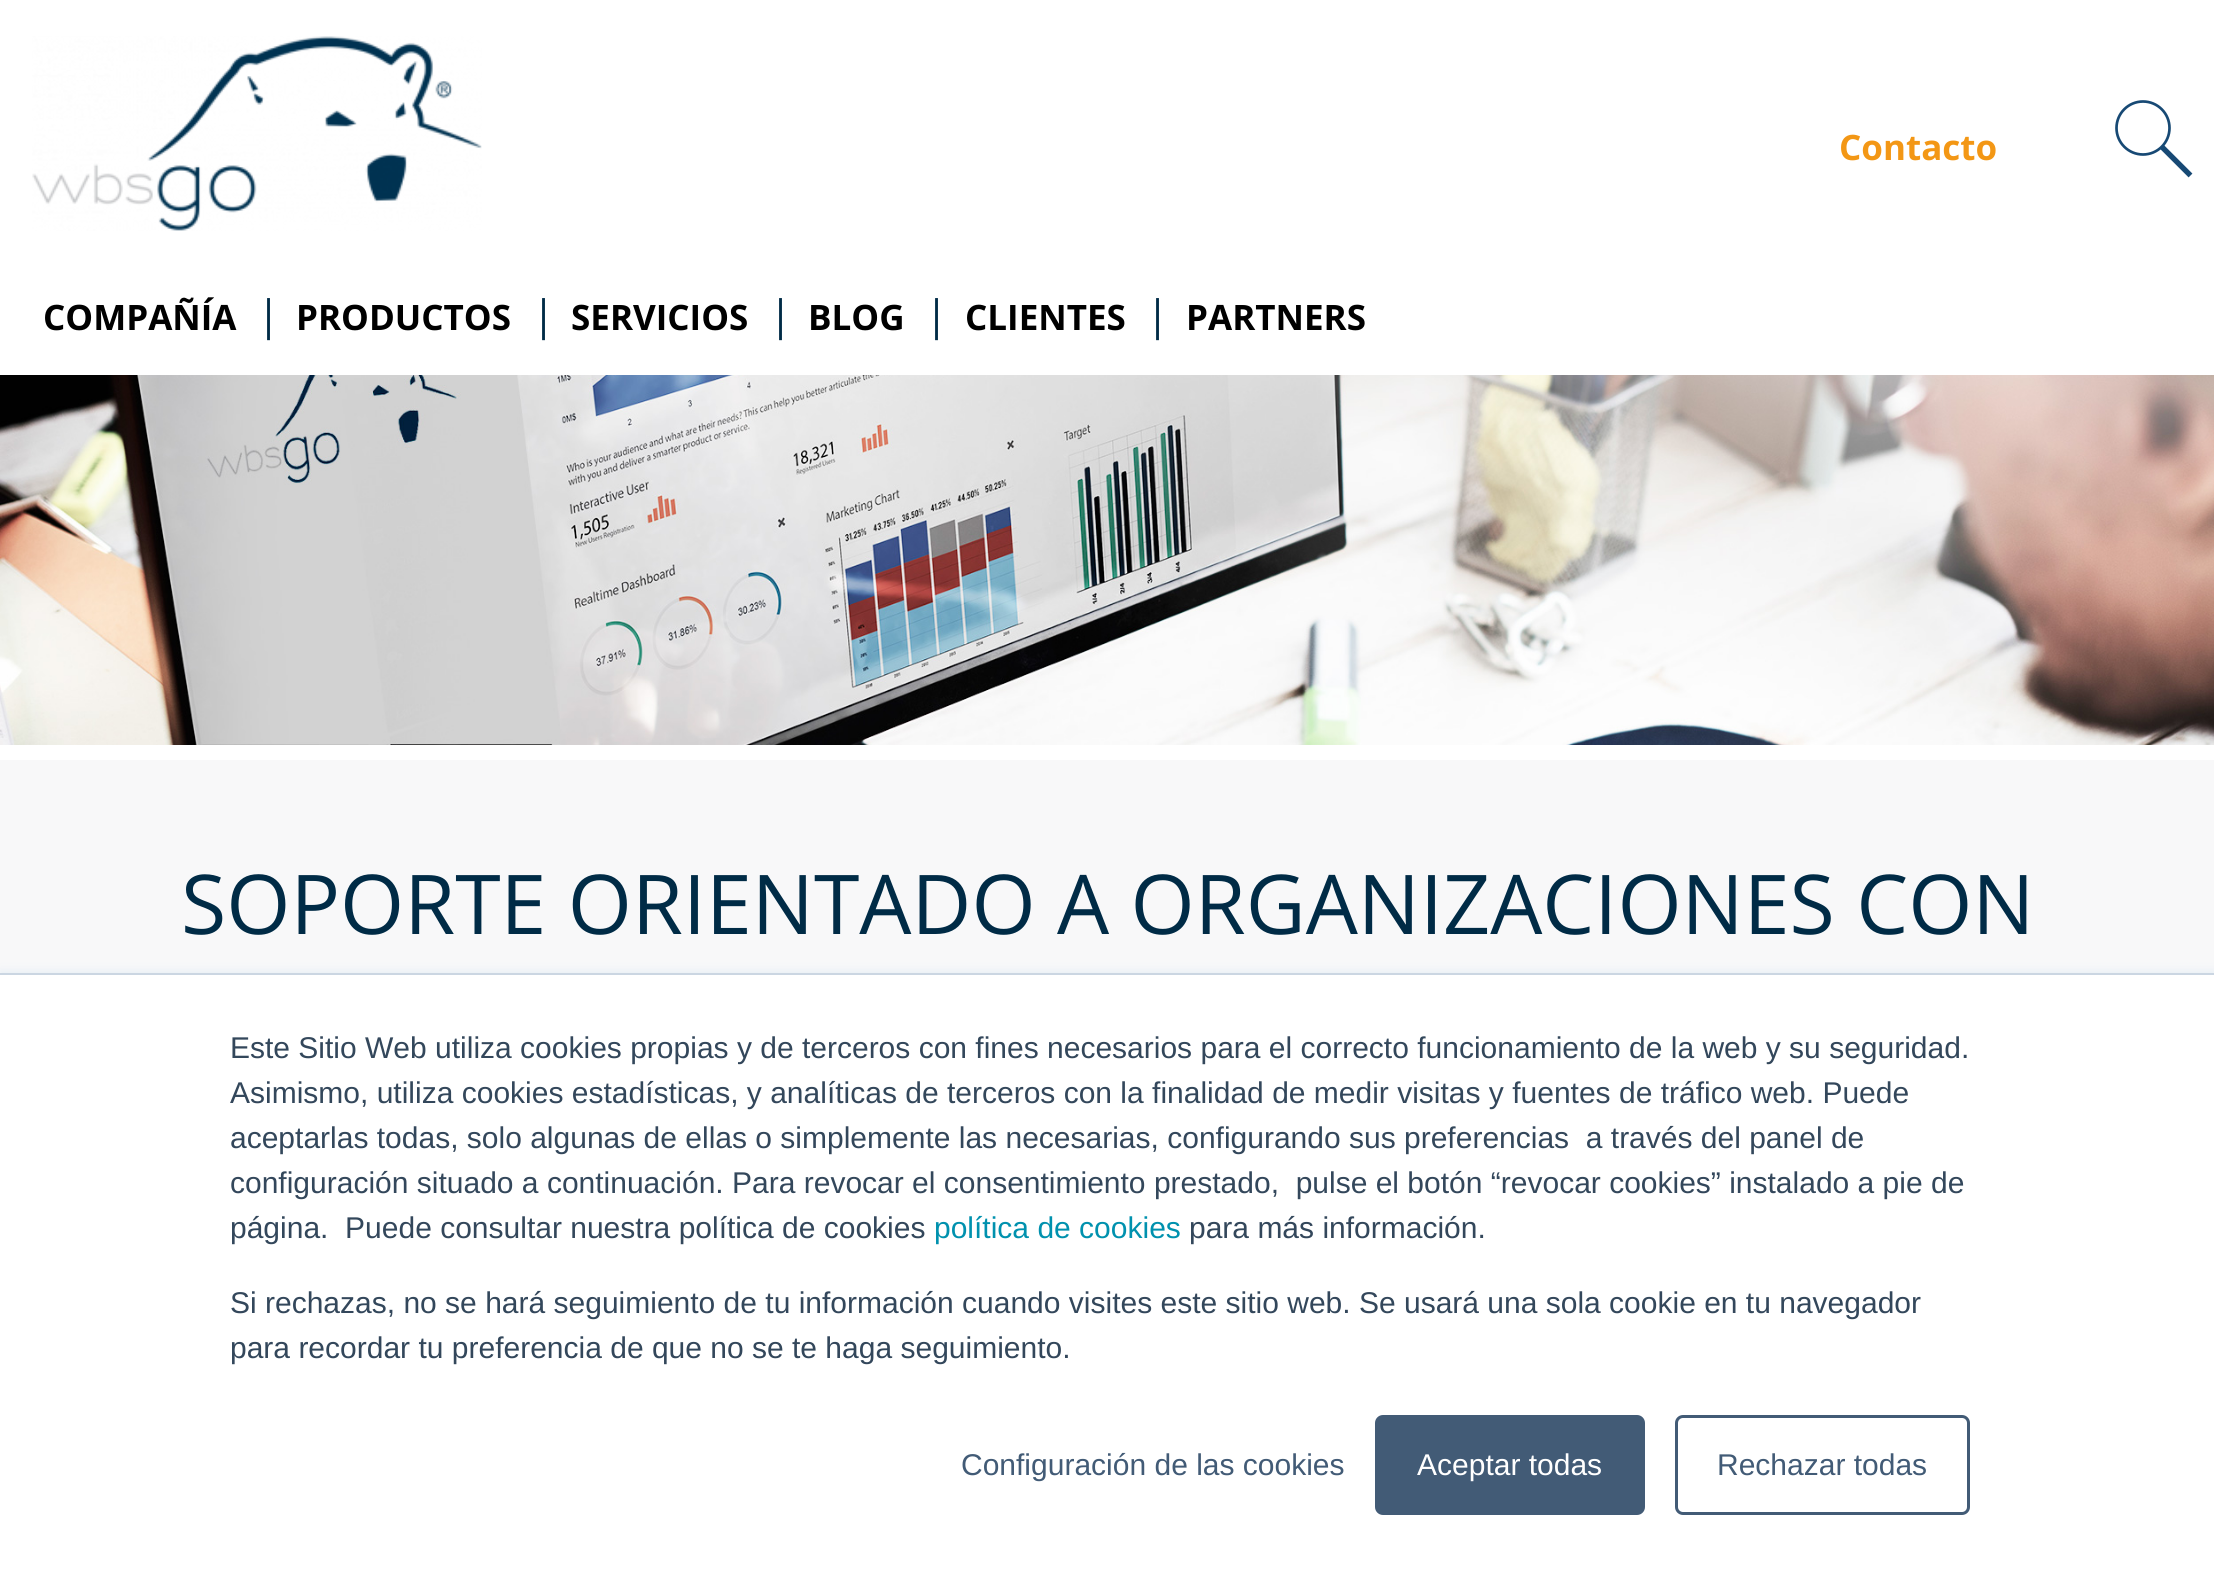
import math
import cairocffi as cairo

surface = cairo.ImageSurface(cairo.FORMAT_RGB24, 2214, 1578)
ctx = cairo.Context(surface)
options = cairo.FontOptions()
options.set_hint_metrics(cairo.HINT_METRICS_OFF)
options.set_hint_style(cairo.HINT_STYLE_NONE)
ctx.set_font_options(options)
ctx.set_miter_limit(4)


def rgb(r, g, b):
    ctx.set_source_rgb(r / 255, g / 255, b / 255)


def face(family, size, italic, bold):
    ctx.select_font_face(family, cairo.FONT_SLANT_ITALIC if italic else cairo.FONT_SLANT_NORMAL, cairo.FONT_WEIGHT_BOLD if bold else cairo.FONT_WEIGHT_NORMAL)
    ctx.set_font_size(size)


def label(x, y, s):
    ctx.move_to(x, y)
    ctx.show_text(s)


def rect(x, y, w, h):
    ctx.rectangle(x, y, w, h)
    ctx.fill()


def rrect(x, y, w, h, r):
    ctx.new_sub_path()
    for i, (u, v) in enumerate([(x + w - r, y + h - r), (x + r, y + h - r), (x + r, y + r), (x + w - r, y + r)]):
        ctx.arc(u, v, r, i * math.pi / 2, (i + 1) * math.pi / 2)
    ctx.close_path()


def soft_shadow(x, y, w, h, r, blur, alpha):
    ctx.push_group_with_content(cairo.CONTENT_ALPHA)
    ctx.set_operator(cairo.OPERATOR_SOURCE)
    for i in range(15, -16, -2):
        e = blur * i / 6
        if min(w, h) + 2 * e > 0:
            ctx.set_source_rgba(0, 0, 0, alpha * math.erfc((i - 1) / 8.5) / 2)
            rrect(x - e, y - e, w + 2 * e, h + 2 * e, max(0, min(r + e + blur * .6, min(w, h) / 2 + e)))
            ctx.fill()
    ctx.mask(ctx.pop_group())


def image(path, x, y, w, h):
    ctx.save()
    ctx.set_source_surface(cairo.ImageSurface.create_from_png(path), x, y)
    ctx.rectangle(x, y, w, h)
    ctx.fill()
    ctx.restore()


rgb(255, 255, 255)
ctx.paint()
image('image0.png', 32, 36, 450, 195)
face('Open Sans', 35, 0, 1)
rgb(243, 151, 21)
label(1839, 160, 'Contacto')
ctx.new_path()
ctx.arc(2143, 128, 26.5, 0, 2 * math.pi)
rgb(23, 73, 116)
ctx.set_line_width(2.7)
ctx.stroke()
ctx.new_path()
ctx.move_to(2190.5, 175.5)
ctx.line_to(2162, 147)
ctx.set_line_width(5.4)
ctx.stroke()
rgb(0, 0, 0)
label(43, 330, 'COMPAÑÍA')
face('Open Sans', 42, 0, 0)
rgb(0, 43, 70)
label(257, 330, '|')
face('Open Sans', 35, 0, 1)
rgb(0, 0, 0)
label(296, 330, 'PRODUCTOS')
face('Open Sans', 42, 0, 0)
rgb(0, 43, 70)
label(532, 330, '|')
face('Open Sans', 35, 0, 1)
rgb(0, 0, 0)
label(571, 330, 'SERVICIOS')
face('Open Sans', 42, 0, 0)
rgb(0, 43, 70)
label(769, 330, '|')
face('Open Sans', 35, 0, 1)
rgb(0, 0, 0)
label(808, 330, 'BLOG')
face('Open Sans', 42, 0, 0)
rgb(0, 43, 70)
label(925, 330, '|')
face('Open Sans', 35, 0, 1)
rgb(0, 0, 0)
label(965, 330, 'CLIENTES')
face('Open Sans', 42, 0, 0)
rgb(0, 43, 70)
label(1146, 330, '|')
face('Open Sans', 35, 0, 1)
rgb(0, 0, 0)
label(1186, 330, 'PARTNERS')
image('image1.png', 0, 375, 2214, 370)
rgb(248, 248, 249)
rect(0, 760, 2214, 213)
face('Open Sans', 82.5, 0, 0)
rgb(0, 43, 70)
label(181, 934, 'SOPORTE ORIENTADO A ORGANIZACIONES CON')
rgb(234, 240, 246)
soft_shadow(0, 970, 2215, 608, 0, 4, 1)
rgb(203, 214, 226)
rect(0, 973, 2214, 2)
rgb(255, 255, 255)
rect(0, 975, 2214, 603)
face('Liberation Sans', 30, 0, 0)
rgb(51, 71, 91)
label(230, 1058, 'Este Sitio Web utiliza cookies propias y de terceros con fines necesarios para el correcto funcionamiento de la web y su seguridad.')
label(230, 1103, 'Asimismo, utiliza cookies estadísticas, y analíticas de terceros con la finalidad de medir visitas y fuentes de tráfico web. Puede')
label(230, 1148, 'aceptarlas todas, solo algunas de ellas o simplemente las necesarias, configurando sus preferencias  a través del panel de')
label(230, 1193, 'configuración situado a continuación. Para revocar el consentimiento prestado,  pulse el botón “revocar cookies” instalado a pie de')
label(230, 1238, 'página.  Puede consultar nuestra política de cookies')
rgb(0, 145, 174)
label(934, 1238, 'política de cookies')
rgb(51, 71, 91)
label(1189, 1238, 'para más información.')
label(230, 1313, 'Si rechazas, no se hará seguimiento de tu información cuando visites este sitio web. Se usará una sola cookie en tu navegador')
label(230, 1358, 'para recordar tu preferencia de que no se te haga seguimiento.')
rgb(66, 91, 118)
label(961, 1475, 'Configuración de las cookies')
rrect(1376.5, 1416.5, 267, 97, 6.5)
ctx.fill_preserve()
ctx.set_line_width(3)
ctx.stroke()
rgb(255, 255, 255)
label(1417, 1475, 'Aceptar todas')
rrect(1676.5, 1416.5, 292, 97, 6.5)
rgb(66, 91, 118)
ctx.stroke()
label(1717, 1475, 'Rechazar todas')
surface.write_to_png('render.png')
